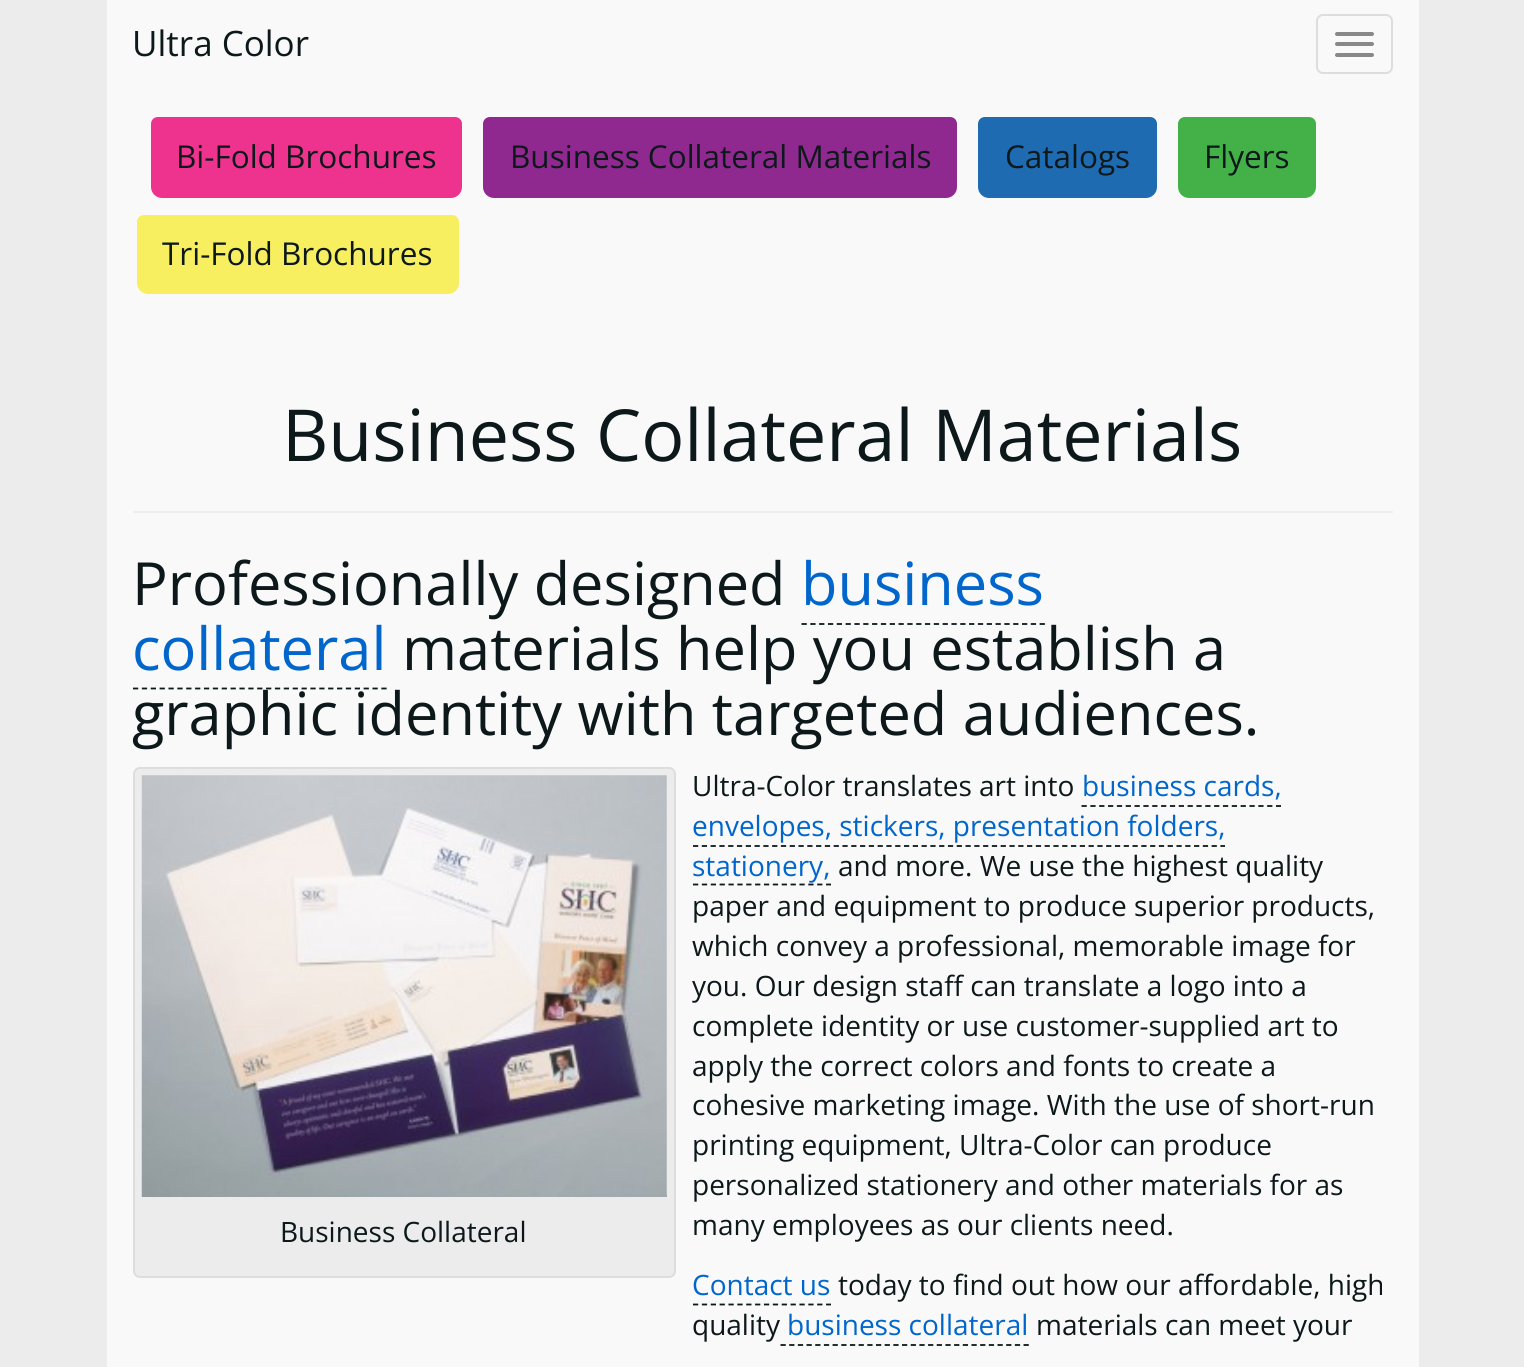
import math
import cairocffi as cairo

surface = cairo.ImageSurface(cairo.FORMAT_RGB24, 1524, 1367)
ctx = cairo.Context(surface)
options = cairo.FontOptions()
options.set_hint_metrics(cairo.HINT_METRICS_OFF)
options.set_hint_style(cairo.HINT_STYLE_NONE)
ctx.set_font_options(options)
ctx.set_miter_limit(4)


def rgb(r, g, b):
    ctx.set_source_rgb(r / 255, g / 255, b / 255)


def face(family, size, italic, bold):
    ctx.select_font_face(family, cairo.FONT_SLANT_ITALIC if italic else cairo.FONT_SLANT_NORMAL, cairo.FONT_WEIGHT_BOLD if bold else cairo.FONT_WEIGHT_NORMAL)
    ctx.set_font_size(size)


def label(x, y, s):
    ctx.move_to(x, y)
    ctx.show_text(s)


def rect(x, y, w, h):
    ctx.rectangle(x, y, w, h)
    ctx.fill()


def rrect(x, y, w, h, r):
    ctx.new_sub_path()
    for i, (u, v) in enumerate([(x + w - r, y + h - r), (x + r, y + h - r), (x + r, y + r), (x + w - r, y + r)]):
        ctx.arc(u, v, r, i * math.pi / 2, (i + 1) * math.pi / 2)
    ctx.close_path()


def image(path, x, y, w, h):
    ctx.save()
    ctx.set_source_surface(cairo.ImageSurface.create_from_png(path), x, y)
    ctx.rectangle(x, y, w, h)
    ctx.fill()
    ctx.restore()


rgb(236, 236, 236)
ctx.paint()
rgb(249, 249, 249)
rect(107, 0, 1312, 1367)
face('Open Sans', 35, 0, 0)
rgb(13, 24, 26)
label(132, 56, 'Ultra Color')
rrect(1317, 15, 75, 58, 6)
rgb(221, 221, 221)
ctx.stroke()
rgb(136, 136, 136)
rrect(1335, 32, 39, 4, 2)
ctx.fill()
rrect(1335, 42, 39, 4, 2)
ctx.fill()
rrect(1335, 53, 39, 4, 2)
ctx.fill()
rgb(237, 51, 142)
ctx.new_path()
ctx.move_to(158, 117)
ctx.line_to(455, 117)
ctx.curve_to(459, 117, 462, 120, 462, 124)
ctx.line_to(462, 187)
ctx.curve_to(462, 193, 457, 198, 451, 198)
ctx.line_to(162, 198)
ctx.curve_to(156, 198, 151, 193, 151, 187)
ctx.line_to(151, 124)
ctx.curve_to(151, 120, 154, 117, 158, 117)
ctx.close_path()
ctx.fill()
face('Open Sans', 31.5, 0, 0)
rgb(13, 24, 26)
label(176, 168, 'Bi-Fold Brochures')
rgb(143, 41, 143)
ctx.new_path()
ctx.move_to(490, 117)
ctx.line_to(950, 117)
ctx.curve_to(954, 117, 957, 120, 957, 124)
ctx.line_to(957, 187)
ctx.curve_to(957, 193, 952, 198, 946, 198)
ctx.line_to(494, 198)
ctx.curve_to(488, 198, 483, 193, 483, 187)
ctx.line_to(483, 124)
ctx.curve_to(483, 120, 486, 117, 490, 117)
ctx.close_path()
ctx.fill()
rgb(13, 24, 26)
label(510, 168, 'Business Collateral Materials')
rgb(30, 107, 178)
ctx.new_path()
ctx.move_to(985, 117)
ctx.line_to(1150, 117)
ctx.curve_to(1154, 117, 1157, 120, 1157, 124)
ctx.line_to(1157, 187)
ctx.curve_to(1157, 193, 1152, 198, 1146, 198)
ctx.line_to(989, 198)
ctx.curve_to(983, 198, 978, 193, 978, 187)
ctx.line_to(978, 124)
ctx.curve_to(978, 120, 981, 117, 985, 117)
ctx.close_path()
ctx.fill()
rgb(13, 24, 26)
label(1005, 168, 'Catalogs')
rgb(67, 177, 72)
ctx.new_path()
ctx.move_to(1185, 117)
ctx.line_to(1309, 117)
ctx.curve_to(1313, 117, 1316, 120, 1316, 124)
ctx.line_to(1316, 187)
ctx.curve_to(1316, 193, 1311, 198, 1305, 198)
ctx.line_to(1189, 198)
ctx.curve_to(1183, 198, 1178, 193, 1178, 187)
ctx.line_to(1178, 124)
ctx.curve_to(1178, 120, 1181, 117, 1185, 117)
ctx.close_path()
ctx.fill()
rgb(13, 24, 26)
label(1204, 168, 'Flyers')
rgb(247, 238, 96)
ctx.new_path()
ctx.move_to(144, 215)
ctx.line_to(452, 215)
ctx.curve_to(456, 215, 459, 218, 459, 222)
ctx.line_to(459, 283)
ctx.curve_to(459, 289, 454, 294, 448, 294)
ctx.line_to(148, 294)
ctx.curve_to(142, 294, 137, 289, 137, 283)
ctx.line_to(137, 222)
ctx.curve_to(137, 218, 140, 215, 144, 215)
ctx.close_path()
ctx.fill()
rgb(13, 24, 26)
label(162, 265, 'Tri-Fold Brochures')
rgb(238, 238, 238)
rect(133, 511, 1260, 2)
face('Open Sans', 71.75, 0, 0)
rgb(13, 24, 26)
label(282, 461, 'Business Collateral Materials')
face('Open Sans', 59.5, 0, 0)
label(132, 605, 'Professionally designed')
rgb(0, 102, 204)
label(801, 605, 'business')
ctx.new_path()
ctx.move_to(801.5, 624)
ctx.line_to(1045, 624)
rgb(13, 24, 26)
ctx.set_line_width(1.8)
ctx.set_dash([5.25, 3.57])
ctx.stroke()
rgb(0, 102, 204)
label(132, 670, 'collateral')
ctx.new_path()
ctx.move_to(133, 688.5)
ctx.line_to(387, 688.5)
rgb(13, 24, 26)
ctx.set_dash([5.25, 3.62])
ctx.stroke()
label(402, 670, 'materials help you establish a')
label(132, 735, 'graphic identity with targeted audiences.')
rgb(236, 236, 236)
rrect(134, 768, 541, 509, 6)
ctx.fill_preserve()
rgb(221, 221, 221)
ctx.set_line_width(2)
ctx.set_dash([])
ctx.stroke()
ctx.new_path()
ctx.move_to(142, 1196)
ctx.line_to(667, 1196)
rgb(13, 24, 26)
ctx.set_line_width(1.8)
ctx.set_dash([5.25, 3.55])
ctx.stroke()
image('image0.png', 141, 775, 526, 422)
face('Open Sans', 28, 0, 0)
label(280, 1242, 'Business Collateral')
label(692, 796, 'Ultra-Color translates art into')
rgb(0, 102, 204)
label(1082, 796, 'business cards,')
ctx.new_path()
ctx.move_to(1081.5, 806)
ctx.line_to(1281, 806)
rgb(13, 24, 26)
ctx.set_dash([5.25, 3.59])
ctx.stroke()
rgb(0, 102, 204)
label(692, 836, 'envelopes, stickers, presentation folders,')
ctx.new_path()
ctx.move_to(693, 846)
ctx.line_to(1225, 846)
rgb(13, 24, 26)
ctx.set_dash([5.25, 3.54])
ctx.stroke()
rgb(0, 102, 204)
label(692, 876, 'stationery,')
ctx.new_path()
ctx.move_to(693, 884.5)
ctx.line_to(831, 884.5)
rgb(13, 24, 26)
ctx.set_dash([5.25, 3.62])
ctx.stroke()
label(838, 876, 'and more. We use the highest quality')
label(692, 916, 'paper and equipment to produce superior products,')
label(692, 956, 'which convey a professional, memorable image for')
label(692, 996, 'you. Our design staff can translate a logo into a')
label(692, 1036, 'complete identity or use customer-supplied art to')
label(692, 1076, 'apply the correct colors and fonts to create a')
label(692, 1115, 'cohesive marketing image. With the use of short-run')
label(692, 1155, 'printing equipment, Ultra-Color can produce')
label(692, 1195, 'personalized stationery and other materials for as')
label(692, 1235, 'many employees as our clients need.')
rgb(0, 102, 204)
label(692, 1295, 'Contact us')
ctx.new_path()
ctx.move_to(693, 1304.5)
ctx.line_to(831, 1304.5)
rgb(13, 24, 26)
ctx.stroke()
label(838, 1295, 'today to find out how our affordable, high')
label(692, 1335, 'quality')
rgb(0, 102, 204)
label(787, 1335, 'business collateral')
ctx.new_path()
ctx.move_to(780.5, 1345)
ctx.line_to(1029, 1345)
rgb(13, 24, 26)
ctx.set_dash([5.25, 3.43])
ctx.stroke()
label(1036, 1335, 'materials can meet your')
surface.write_to_png('render.png')
